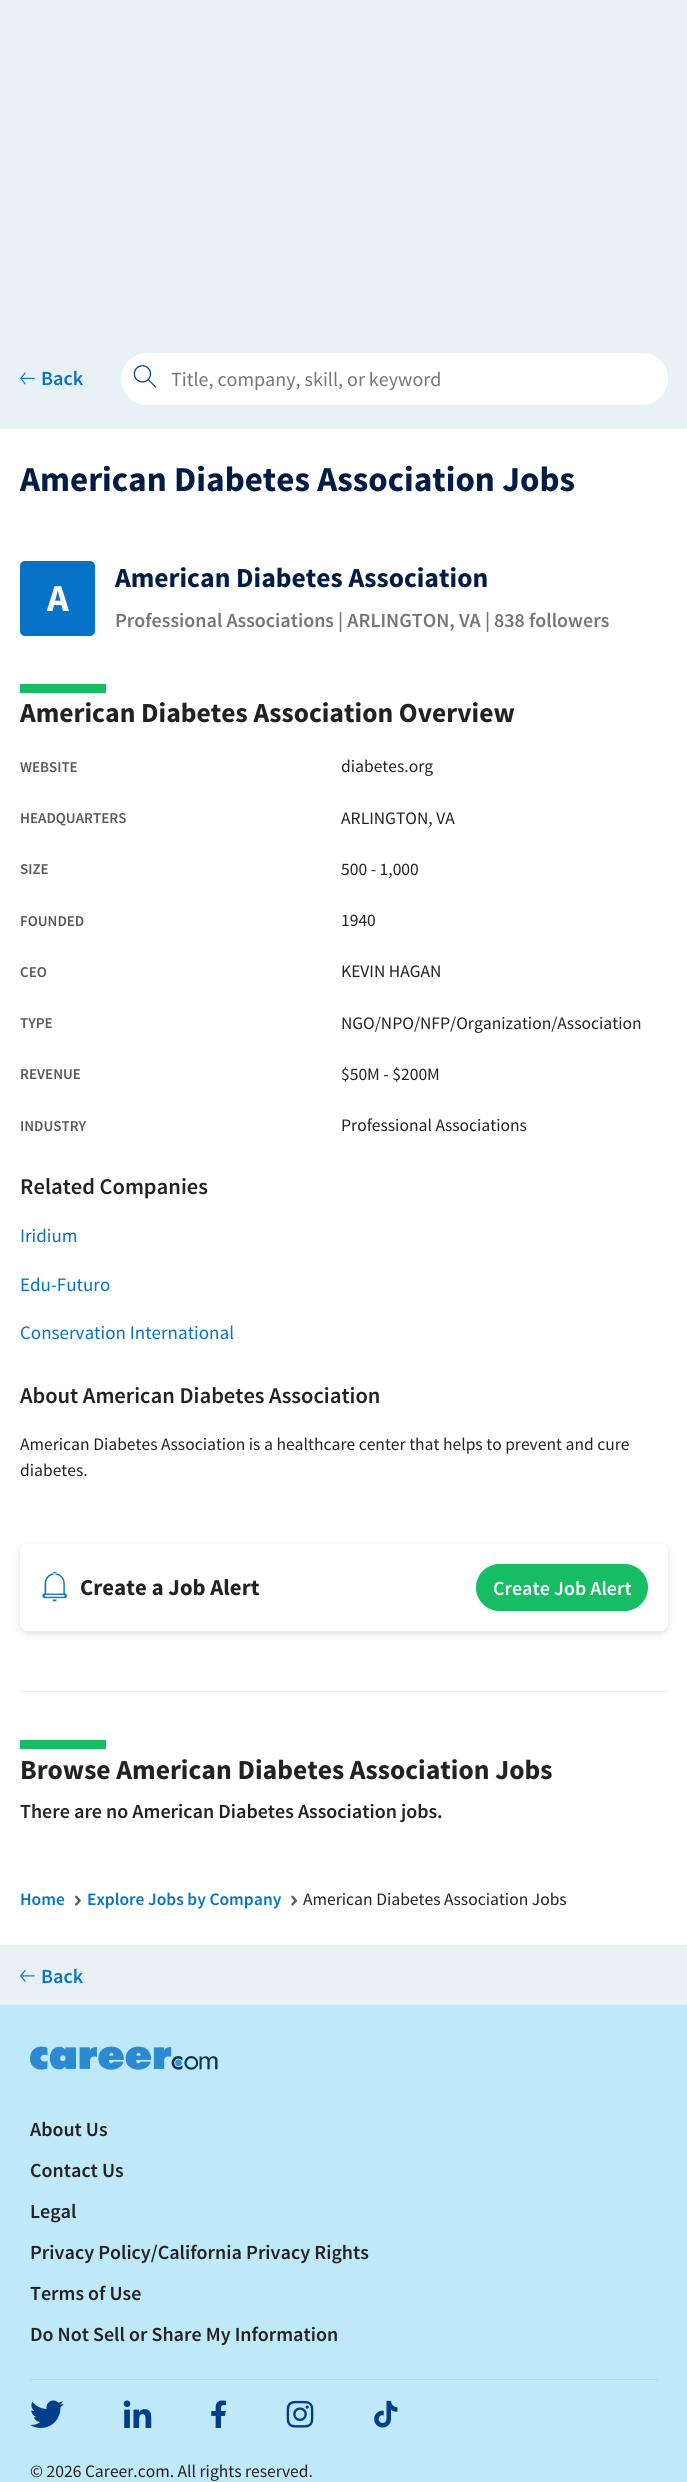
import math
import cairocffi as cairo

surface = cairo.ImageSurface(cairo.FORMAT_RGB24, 687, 2482)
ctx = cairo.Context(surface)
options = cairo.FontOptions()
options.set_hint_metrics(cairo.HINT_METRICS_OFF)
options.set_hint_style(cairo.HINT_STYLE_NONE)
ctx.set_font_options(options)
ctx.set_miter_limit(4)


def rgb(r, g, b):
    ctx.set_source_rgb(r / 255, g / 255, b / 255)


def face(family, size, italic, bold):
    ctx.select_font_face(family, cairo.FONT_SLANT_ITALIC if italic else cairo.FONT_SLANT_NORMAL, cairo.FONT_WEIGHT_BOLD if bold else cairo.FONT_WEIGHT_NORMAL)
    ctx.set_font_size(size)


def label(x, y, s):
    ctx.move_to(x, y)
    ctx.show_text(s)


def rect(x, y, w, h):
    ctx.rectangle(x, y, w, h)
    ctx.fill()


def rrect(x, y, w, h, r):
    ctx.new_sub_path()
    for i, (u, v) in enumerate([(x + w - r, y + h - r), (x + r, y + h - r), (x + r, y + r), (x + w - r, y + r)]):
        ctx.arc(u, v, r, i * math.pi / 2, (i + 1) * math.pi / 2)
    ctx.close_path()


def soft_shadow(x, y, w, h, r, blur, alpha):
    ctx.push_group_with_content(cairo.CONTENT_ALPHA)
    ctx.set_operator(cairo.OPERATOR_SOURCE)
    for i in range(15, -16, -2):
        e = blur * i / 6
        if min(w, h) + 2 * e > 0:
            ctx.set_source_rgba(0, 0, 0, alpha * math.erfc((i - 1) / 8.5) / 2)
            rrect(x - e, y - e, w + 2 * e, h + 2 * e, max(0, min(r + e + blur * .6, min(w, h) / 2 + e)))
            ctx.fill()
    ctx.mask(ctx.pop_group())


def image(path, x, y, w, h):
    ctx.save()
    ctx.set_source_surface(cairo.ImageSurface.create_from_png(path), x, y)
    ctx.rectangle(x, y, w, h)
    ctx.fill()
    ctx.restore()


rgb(255, 255, 255)
ctx.paint()
rgb(231, 241, 246)
rect(0, 0, 687, 429)
image('image0.png', 20, 372, 15, 13)
face('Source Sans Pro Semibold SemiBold', 20, 0, 0)
rgb(7, 115, 200)
label(41, 385, 'Back')
rgb(255, 255, 255)
rrect(121, 353, 547, 52, 26)
ctx.fill()
image('image1.png', 133, 365, 24, 23)
face('Source Sans Pro', 20, 0, 0)
rgb(118, 118, 118)
label(171, 386, 'Title, company, skill, or keyword')
face('Source Sans Pro', 35, 0, 1)
rgb(1, 28, 69)
label(20, 491, 'American Diabetes Association Jobs')
rgb(7, 115, 200)
rrect(20, 561, 75, 75, 5)
ctx.fill()
face('Source Sans Pro', 38, 0, 1)
rgb(255, 255, 255)
label(47, 611, 'A')
face('Source Sans Pro', 27.5, 0, 1)
rgb(1, 28, 69)
label(115, 587, 'American Diabetes Association')
face('Source Sans Pro Semibold SemiBold', 20, 0, 0)
rgb(118, 118, 118)
label(115, 627, 'Professional Associations | ARLINGTON, VA | 838 followers')
rgb(23, 189, 100)
rect(20, 684, 86, 9)
face('Source Sans Pro', 27.5, 0, 1)
rgb(33, 34, 33)
label(20, 722, 'American Diabetes Association Overview')
face('Source Sans Pro Semibold SemiBold', 15, 0, 0)
rgb(88, 89, 91)
label(20, 772, 'WEBSITE')
face('Source Sans Pro', 17.5, 0, 0)
rgb(33, 34, 33)
label(341, 772, 'diabetes.org')
face('Source Sans Pro Semibold SemiBold', 15, 0, 0)
rgb(88, 89, 91)
label(20, 823, 'HEADQUARTERS')
face('Source Sans Pro', 17.5, 0, 0)
rgb(33, 34, 33)
label(341, 824, 'ARLINGTON, VA')
face('Source Sans Pro Semibold SemiBold', 15, 0, 0)
rgb(88, 89, 91)
label(20, 874, 'SIZE')
face('Source Sans Pro', 17.5, 0, 0)
rgb(33, 34, 33)
label(341, 875, '500 - 1,000')
face('Source Sans Pro Semibold SemiBold', 15, 0, 0)
rgb(88, 89, 91)
label(20, 926, 'FOUNDED')
face('Source Sans Pro', 17.5, 0, 0)
rgb(33, 34, 33)
label(341, 926, '1940')
face('Source Sans Pro Semibold SemiBold', 15, 0, 0)
rgb(88, 89, 91)
label(20, 977, 'CEO')
face('Source Sans Pro', 17.5, 0, 0)
rgb(33, 34, 33)
label(341, 977, 'KEVIN HAGAN')
face('Source Sans Pro Semibold SemiBold', 15, 0, 0)
rgb(88, 89, 91)
label(20, 1028, 'TYPE')
face('Source Sans Pro', 17.5, 0, 0)
rgb(33, 34, 33)
label(341, 1029, 'NGO/NPO/NFP/Organization/Association')
face('Source Sans Pro Semibold SemiBold', 15, 0, 0)
rgb(88, 89, 91)
label(20, 1079, 'REVENUE')
face('Source Sans Pro', 17.5, 0, 0)
rgb(33, 34, 33)
label(341, 1080, '$50M - $200M')
face('Source Sans Pro Semibold SemiBold', 15, 0, 0)
rgb(88, 89, 91)
label(20, 1131, 'INDUSTRY')
face('Source Sans Pro', 17.5, 0, 0)
rgb(33, 34, 33)
label(341, 1131, 'Professional Associations')
face('Source Sans Pro Semibold SemiBold', 22.5, 0, 0)
label(20, 1194, 'Related Companies')
face('Source Sans Pro', 19, 0, 0)
rgb(7, 115, 200)
label(20, 1242, 'Iridium')
label(20, 1291, 'Edu-Futuro')
label(20, 1339, 'Conservation International')
face('Source Sans Pro Semibold SemiBold', 22.5, 0, 0)
rgb(33, 34, 33)
label(20, 1403, 'About American Diabetes Association')
face('Source Sans Pro', 17.5, 0, 0)
label(20, 1450, 'American Diabetes Association is a healthcare center that helps to prevent and cure')
label(20, 1476, 'diabetes.')
rgb(0, 0, 0)
soft_shadow(20, 1546, 648, 88, 8, 4, 0.12)
rgb(255, 255, 255)
rrect(20, 1544, 648, 87, 8)
ctx.fill()
image('image2.png', 42, 1571, 25, 31)
face('Source Sans Pro', 22.75, 0, 1)
rgb(33, 34, 33)
label(80, 1595, 'Create a Job Alert')
rgb(23, 189, 100)
rrect(476.5, 1564.5, 171, 46, 23)
ctx.fill_preserve()
ctx.set_line_width(1)
ctx.stroke()
face('Source Sans Pro Semibold SemiBold', 20, 0, 0)
rgb(255, 255, 255)
label(493, 1595, 'Create Job Alert')
rgb(236, 240, 240)
rect(20, 1691, 648, 1)
rgb(23, 189, 100)
rect(20, 1740, 86, 9)
face('Source Sans Pro', 27.5, 0, 1)
rgb(33, 34, 33)
label(20, 1779, 'Browse American Diabetes Association Jobs')
face('Source Sans Pro Semibold SemiBold', 20, 0, 0)
label(20, 1818, 'There are no American Diabetes Association jobs.')
face('Source Sans Pro Semibold SemiBold', 17.5, 0, 0)
rgb(7, 115, 200)
label(20, 1905, 'Home')
image('image3.png', 75, 1895, 6, 11)
label(87, 1905, 'Explore Jobs by Company')
image('image4.png', 291, 1895, 7, 11)
face('Source Sans Pro', 17.5, 0, 0)
rgb(33, 34, 33)
label(303, 1905, 'American Diabetes Association Jobs')
rgb(231, 241, 246)
rect(0, 1945, 687, 60)
image('image5.png', 20, 1969, 15, 13)
face('Source Sans Pro Semibold SemiBold', 20, 0, 0)
rgb(7, 115, 200)
label(41, 1983, 'Back')
rgb(191, 233, 249)
rect(0, 2005, 687, 477)
image('image6.png', 30, 2046, 188, 24)
rgb(33, 34, 33)
label(30, 2136, 'About Us')
label(30, 2177, 'Contact Us')
label(30, 2218, 'Legal')
label(30, 2259, 'Privacy Policy/California Privacy Rights')
label(30, 2300, 'Terms of Use')
label(30, 2341, 'Do Not Sell or Share My Information')
rgb(207, 209, 211)
rect(30, 2379, 628, 1)
image('image7.png', 30, 2400, 34, 28)
image('image8.png', 123, 2400, 29, 28)
image('image9.png', 211, 2400, 15, 28)
image('image10.png', 286, 2400, 28, 28)
image('image11.png', 374, 2400, 24, 28)
face('Source Sans Pro', 17.5, 0, 0)
rgb(33, 34, 33)
label(30, 2477, '© 2026 Career.com. All rights reserved.')
surface.write_to_png('render.png')
